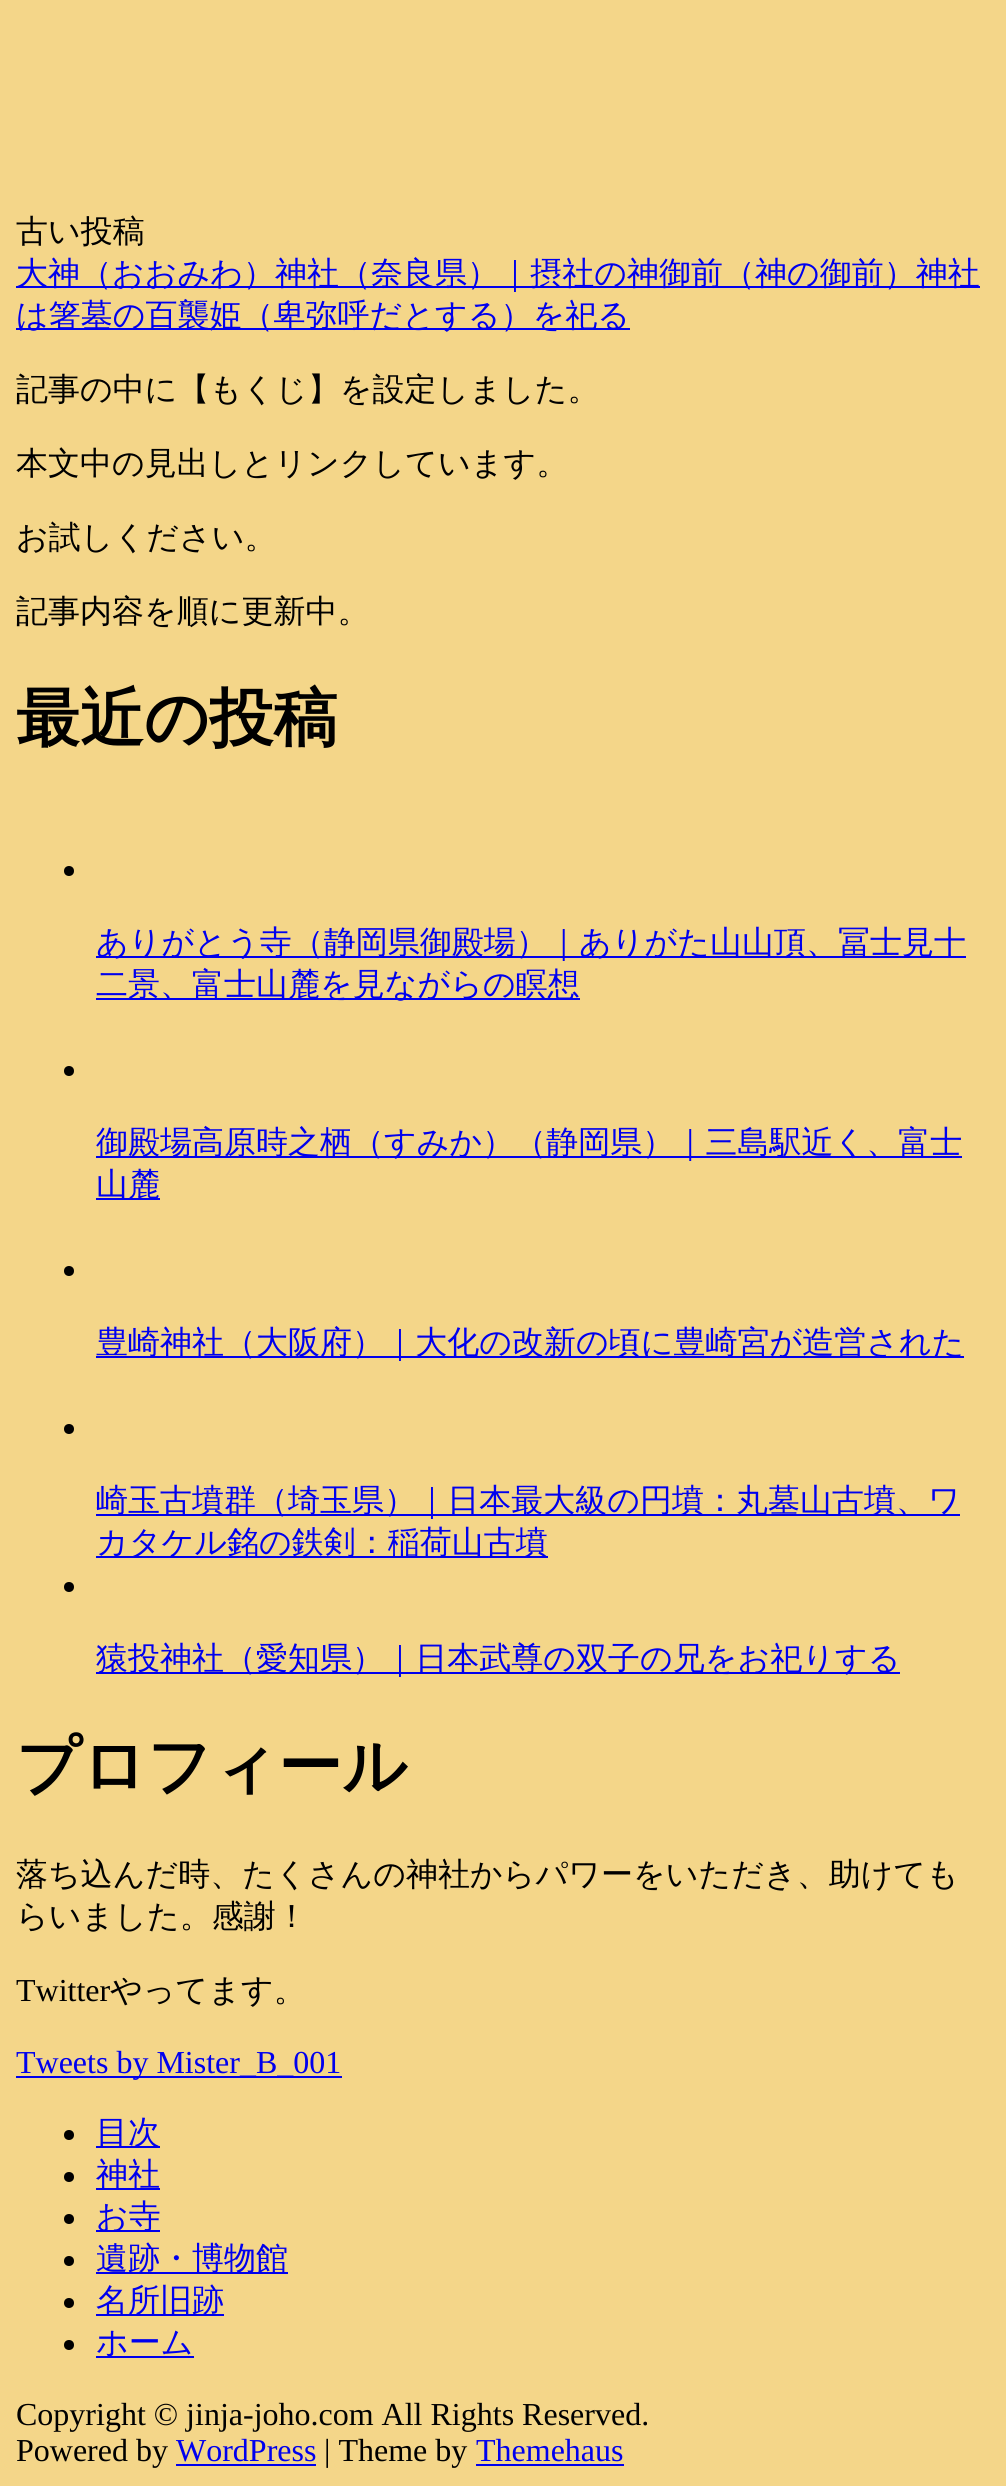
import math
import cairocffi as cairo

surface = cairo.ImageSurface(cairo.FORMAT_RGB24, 1006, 2486)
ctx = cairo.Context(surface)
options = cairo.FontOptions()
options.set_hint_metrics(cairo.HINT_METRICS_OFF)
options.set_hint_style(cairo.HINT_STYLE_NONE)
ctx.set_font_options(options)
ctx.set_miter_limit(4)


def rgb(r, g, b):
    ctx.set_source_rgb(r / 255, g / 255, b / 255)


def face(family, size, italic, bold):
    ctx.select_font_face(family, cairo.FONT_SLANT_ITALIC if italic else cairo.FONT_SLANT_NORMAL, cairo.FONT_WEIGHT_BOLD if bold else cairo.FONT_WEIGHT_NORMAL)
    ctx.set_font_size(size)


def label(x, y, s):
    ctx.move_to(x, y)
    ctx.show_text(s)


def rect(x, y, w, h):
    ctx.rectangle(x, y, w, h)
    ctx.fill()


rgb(244, 214, 137)
ctx.paint()
face('WenQuanYi Zen Hei Medium', 32, 0, 0)
rgb(0, 0, 0)
label(16, 242, '古い投稿')
rgb(0, 0, 238)
rect(16, 286, 964, 2)
label(16, 284, '大神（おおみわ）神社（奈良県）｜摂社の神御前（神の御前）神社')
rect(16, 328, 614, 2)
label(16, 326, 'は箸墓の百襲姫（卑弥呼だとする）を祀る')
rgb(0, 0, 0)
label(16, 400, '記事の中に【もくじ】を設定しました。')
label(16, 474, '本文中の見出しとリンクしています。')
label(16, 548, 'お試しください。')
label(16, 622, '記事内容を順に更新中。')
face('WenQuanYi Zen Hei', 64, 0, 1)
label(16, 740, '最近の投稿')
ctx.new_path()
ctx.arc(69, 871, 5, 0, 2 * math.pi)
ctx.fill()
rgb(0, 0, 238)
rect(96, 956, 870, 2)
face('WenQuanYi Zen Hei Medium', 32, 0, 0)
label(96, 953, 'ありがとう寺（静岡県御殿場）｜ありがた山山頂、冨士見十')
rect(96, 998, 484, 2)
label(96, 995, '二景、富士山麓を見ながらの瞑想')
rgb(0, 0, 0)
ctx.new_path()
ctx.arc(69, 1071, 5, 0, 2 * math.pi)
ctx.fill()
rgb(0, 0, 238)
rect(96, 1156, 866, 2)
label(96, 1153, '御殿場高原時之栖（すみか）（静岡県）｜三島駅近く、富士')
rect(96, 1198, 64, 2)
label(96, 1195, '山麓')
rgb(0, 0, 0)
ctx.new_path()
ctx.arc(69, 1271, 5, 0, 2 * math.pi)
ctx.fill()
rgb(0, 0, 238)
rect(96, 1356, 868, 2)
label(96, 1353, '豊崎神社（大阪府）｜大化の改新の頃に豊崎宮が造営された')
rgb(0, 0, 0)
ctx.new_path()
ctx.arc(69, 1429, 5, 0, 2 * math.pi)
ctx.fill()
rgb(0, 0, 238)
rect(96, 1514, 864, 2)
label(96, 1511, '崎玉古墳群（埼玉県）｜日本最大級の円墳：丸墓山古墳、ワ')
rect(96, 1556, 452, 2)
label(96, 1553, 'カタケル銘の鉄剣：稲荷山古墳')
rgb(0, 0, 0)
ctx.new_path()
ctx.arc(69, 1587, 5, 0, 2 * math.pi)
ctx.fill()
rgb(0, 0, 238)
rect(96, 1672, 804, 2)
label(96, 1669, '猿投神社（愛知県）｜日本武尊の双子の兄をお祀りする')
face('WenQuanYi Zen Hei', 64, 0, 1)
rgb(0, 0, 0)
label(16, 1788, 'プロフィール')
face('WenQuanYi Zen Hei Medium', 32, 0, 0)
label(16, 1885, '落ち込んだ時、たくさんの神社からパワーをいただき、助けても')
label(16, 1927, 'らいました。感謝！')
face('Liberation Serif', 32, 0, 0)
label(16, 2001, 'Twitter')
face('WenQuanYi Zen Hei Medium', 32, 0, 0)
label(110, 2001, 'やってます。')
rgb(0, 0, 238)
rect(16, 2076, 326, 2)
face('Liberation Serif', 32, 0, 0)
label(16, 2073, 'Tweets by Mister_B_001')
rgb(0, 0, 0)
ctx.new_path()
ctx.arc(69, 2135, 5, 0, 2 * math.pi)
ctx.fill()
rgb(0, 0, 238)
rect(96, 2146, 64, 2)
face('WenQuanYi Zen Hei Medium', 32, 0, 0)
label(96, 2143, '目次')
rgb(0, 0, 0)
ctx.new_path()
ctx.arc(69, 2177, 5, 0, 2 * math.pi)
ctx.fill()
rgb(0, 0, 238)
rect(96, 2188, 64, 2)
label(96, 2185, '神社')
rgb(0, 0, 0)
ctx.new_path()
ctx.arc(69, 2219, 5, 0, 2 * math.pi)
ctx.fill()
rgb(0, 0, 238)
rect(96, 2230, 64, 2)
label(96, 2227, 'お寺')
rgb(0, 0, 0)
ctx.new_path()
ctx.arc(69, 2261, 5, 0, 2 * math.pi)
ctx.fill()
rgb(0, 0, 238)
rect(96, 2272, 192, 2)
label(96, 2269, '遺跡・博物館')
rgb(0, 0, 0)
ctx.new_path()
ctx.arc(69, 2303, 5, 0, 2 * math.pi)
ctx.fill()
rgb(0, 0, 238)
rect(96, 2314, 128, 2)
label(96, 2311, '名所旧跡')
rgb(0, 0, 0)
ctx.new_path()
ctx.arc(69, 2345, 5, 0, 2 * math.pi)
ctx.fill()
rgb(0, 0, 238)
rect(96, 2356, 98, 2)
label(96, 2353, 'ホーム')
face('Liberation Serif', 32, 0, 0)
rgb(0, 0, 0)
label(16, 2425, 'Copyright © jinja-joho.com All Rights Reserved.')
label(16, 2461, 'Powered by')
rgb(0, 0, 238)
label(176, 2461, 'WordPress')
rect(176, 2464, 140, 2)
rgb(0, 0, 0)
label(324, 2461, '| Theme by')
rgb(0, 0, 238)
label(476, 2461, 'Themehaus')
rect(476, 2464, 148, 2)
surface.write_to_png('render.png')
